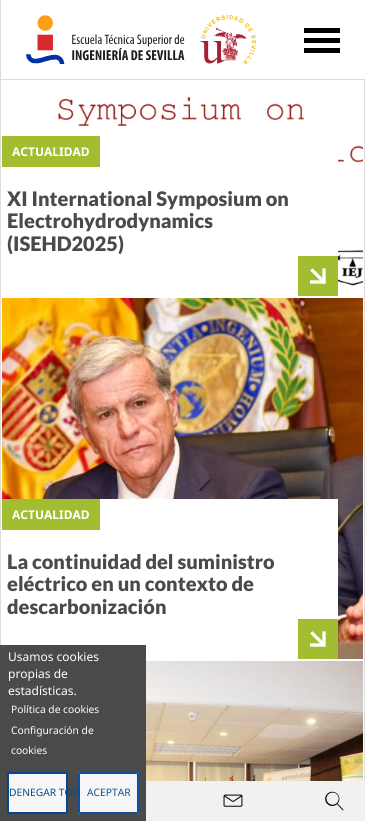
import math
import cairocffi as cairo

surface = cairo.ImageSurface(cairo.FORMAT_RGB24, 365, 821)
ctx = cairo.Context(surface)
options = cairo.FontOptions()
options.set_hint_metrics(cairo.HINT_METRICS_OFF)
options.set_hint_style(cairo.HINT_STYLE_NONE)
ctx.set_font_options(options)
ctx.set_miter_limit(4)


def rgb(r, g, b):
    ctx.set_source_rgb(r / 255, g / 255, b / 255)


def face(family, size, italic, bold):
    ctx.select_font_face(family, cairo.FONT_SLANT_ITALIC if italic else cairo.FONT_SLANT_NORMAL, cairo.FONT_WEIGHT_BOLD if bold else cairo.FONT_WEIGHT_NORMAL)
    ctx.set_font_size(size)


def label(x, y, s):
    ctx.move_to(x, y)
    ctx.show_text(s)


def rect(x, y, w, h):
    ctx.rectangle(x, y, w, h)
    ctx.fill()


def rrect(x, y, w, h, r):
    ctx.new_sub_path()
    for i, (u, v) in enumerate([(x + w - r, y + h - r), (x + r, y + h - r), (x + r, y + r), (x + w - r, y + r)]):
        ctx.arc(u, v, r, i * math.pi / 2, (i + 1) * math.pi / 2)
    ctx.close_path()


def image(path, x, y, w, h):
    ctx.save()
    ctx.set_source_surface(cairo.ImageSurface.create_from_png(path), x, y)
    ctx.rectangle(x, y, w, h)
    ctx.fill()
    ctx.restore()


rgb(255, 255, 255)
ctx.paint()
rgb(221, 220, 220)
rect(364, 80, 1, 701)
rect(0, 0, 1, 645)
rect(1, 79, 364, 1)
image('image0.png', 26, 15, 230, 49)
rgb(241, 241, 241)
rect(146, 781, 219, 40)
image('image1.png', 223, 794, 20, 13)
image('image2.png', 325, 791, 19, 20)
rgb(0, 0, 0)
rect(304, 28, 36, 5)
rect(304, 38, 36, 5)
rect(304, 48, 36, 5)
image('image3.png', 2, 80, 361, 209)
rgb(255, 255, 255)
rect(2, 138, 336, 151)
rgb(163, 189, 49)
rect(2, 136, 98, 31)
face('Noto Sans', 12, 0, 1)
rgb(255, 255, 255)
label(12, 156, 'ACTUALIDAD')
face('Lato Black', 20, 0, 0)
rgb(74, 74, 74)
label(7, 206, 'XI International Symposium on')
label(7, 228, 'Electrohydrodynamics')
label(7, 251, '(ISEHD2025)')
rgb(163, 189, 49)
rect(298, 256, 40, 40)
ctx.new_path()
ctx.move_to(324, 270)
ctx.line_to(324, 282)
rgb(255, 255, 255)
ctx.set_line_width(3.3)
ctx.set_line_cap(cairo.LINE_CAP_SQUARE)
ctx.stroke()
ctx.save()
ctx.rectangle(310, 268, 16, 16)
ctx.clip()
ctx.new_path()
ctx.move_to(323, 282)
ctx.line_to(311.5, 282)
ctx.stroke()
ctx.restore()
ctx.new_path()
ctx.move_to(323.5, 281.5)
ctx.line_to(312.5, 270.5)
ctx.stroke()
image('image4.png', 2, 298, 361, 361)
rect(2, 499, 336, 160)
rgb(163, 189, 49)
rect(2, 499, 98, 31)
face('Noto Sans', 12, 0, 1)
rgb(255, 255, 255)
label(12, 519, 'ACTUALIDAD')
face('Lato Black', 20, 0, 0)
rgb(74, 74, 74)
label(7, 569, 'La continuidad del suministro')
label(7, 591, 'eléctrico en un contexto de')
label(7, 614, 'descarbonización')
rgb(163, 189, 49)
rect(298, 619, 40, 40)
ctx.new_path()
ctx.move_to(324, 633)
ctx.line_to(324, 645)
rgb(255, 255, 255)
ctx.stroke()
ctx.save()
ctx.rectangle(310, 631, 16, 16)
ctx.clip()
ctx.new_path()
ctx.move_to(323, 645)
ctx.line_to(311.5, 645)
ctx.stroke()
ctx.restore()
ctx.new_path()
ctx.move_to(323.5, 644.5)
ctx.line_to(312.5, 633.5)
ctx.stroke()
image('image5.png', 146, 661, 217, 120)
rgb(74, 74, 74)
rect(0, 645, 146, 176)
face('Noto Sans', 12, 0, 0)
rgb(255, 255, 255)
label(8, 661, 'Usamos cookies')
label(8, 678, 'propias de')
label(8, 695, 'estadísticas.')
face('Noto Sans', 10.25, 0, 0)
label(11, 713, 'Política de cookies')
label(11, 734, 'Configuración de')
label(11, 754, 'cookies')
rgb(246, 246, 246)
rrect(8, 773, 59, 40, 1)
ctx.fill_preserve()
rgb(4, 72, 149)
ctx.set_line_width(2)
ctx.set_line_cap(cairo.LINE_CAP_BUTT)
ctx.stroke()
rgb(4, 76, 143)
label(9, 796, 'DENEGAR TOD')
ctx.set_source_rgba(1, 1, 1, 0.95)
rrect(78, 772, 61, 42, 2)
ctx.fill()
rrect(79, 773, 59, 40, 1)
ctx.set_source_rgba(0, 0.282, 0.6, 0.95)
ctx.stroke()
rgb(12, 84, 152)
label(87, 796, 'ACEPTAR')
surface.write_to_png('render.png')
